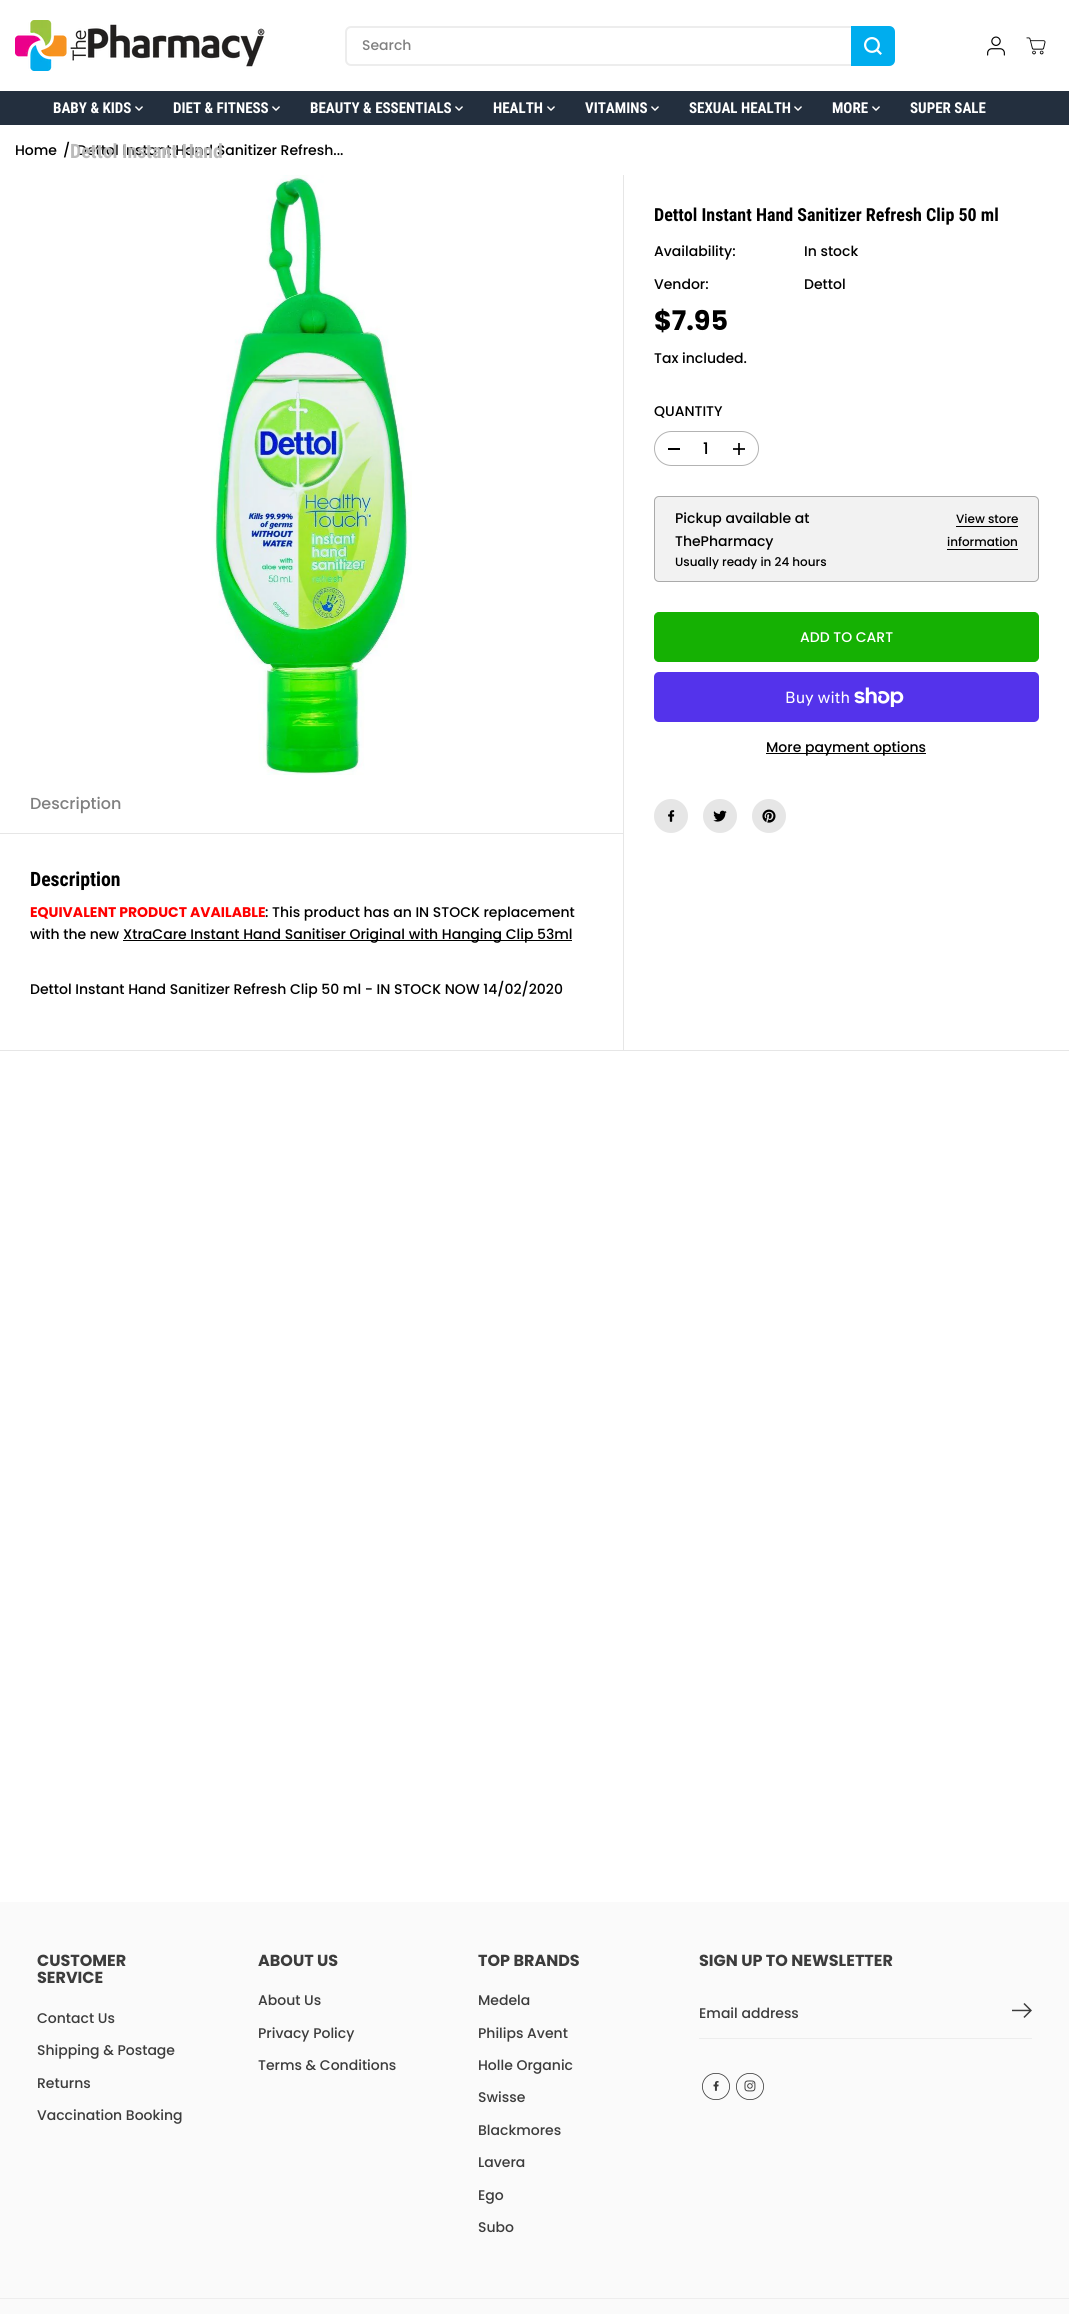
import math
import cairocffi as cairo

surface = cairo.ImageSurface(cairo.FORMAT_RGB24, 1069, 2314)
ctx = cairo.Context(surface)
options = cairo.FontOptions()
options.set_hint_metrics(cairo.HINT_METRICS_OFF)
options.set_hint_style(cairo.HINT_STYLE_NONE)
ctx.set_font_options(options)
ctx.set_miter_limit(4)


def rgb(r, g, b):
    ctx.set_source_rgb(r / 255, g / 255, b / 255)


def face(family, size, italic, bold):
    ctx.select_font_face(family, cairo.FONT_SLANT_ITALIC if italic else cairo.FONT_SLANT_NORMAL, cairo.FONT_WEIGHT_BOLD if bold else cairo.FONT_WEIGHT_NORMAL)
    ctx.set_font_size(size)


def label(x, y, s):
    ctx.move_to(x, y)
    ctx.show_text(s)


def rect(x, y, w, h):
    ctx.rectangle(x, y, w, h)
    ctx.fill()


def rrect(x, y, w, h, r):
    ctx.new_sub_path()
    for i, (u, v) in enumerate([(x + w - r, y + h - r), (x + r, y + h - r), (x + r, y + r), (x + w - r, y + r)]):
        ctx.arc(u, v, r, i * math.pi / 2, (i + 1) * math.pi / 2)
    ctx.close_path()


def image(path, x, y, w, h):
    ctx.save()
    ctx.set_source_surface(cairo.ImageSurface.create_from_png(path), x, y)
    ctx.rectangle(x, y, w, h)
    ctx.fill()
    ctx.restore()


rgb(255, 255, 255)
ctx.paint()
image('image0.png', 15, 20, 250, 51)
rrect(346, 27, 548, 38, 5)
rgb(237, 237, 237)
ctx.stroke()
face('Poppins Medium', 14, 0, 0)
rgb(128, 128, 128)
label(362, 50, 'Search')
rgb(0, 173, 238)
ctx.new_path()
ctx.move_to(851, 26)
ctx.line_to(889, 26)
ctx.curve_to(892.5, 26, 895, 28.5, 895, 32)
ctx.line_to(895, 60)
ctx.curve_to(895, 63.5, 892.5, 66, 889, 66)
ctx.line_to(851, 66)
ctx.close_path()
ctx.fill()
image('image1.png', 864, 37, 18, 18)
image('image2.png', 987, 36, 18, 20)
image('image3.png', 1026, 37, 20, 18)
rgb(35, 47, 62)
rect(0, 91, 1069, 34)
face('Roboto Condensed', 15, 0, 1)
rgb(255, 255, 255)
label(53, 113, 'BABY & KIDS')
image('image4.png', 135, 106, 8, 5)
label(173, 113, 'DIET & FITNESS')
image('image4.png', 272, 106, 8, 5)
label(310, 113, 'BEAUTY & ESSENTIALS')
image('image4.png', 455, 106, 8, 5)
label(493, 113, 'HEALTH')
image('image4.png', 547, 106, 8, 5)
label(585, 113, 'VITAMINS')
image('image4.png', 651, 106, 8, 5)
label(689, 113, 'SEXUAL HEALTH')
image('image4.png', 794, 106, 8, 5)
label(832, 113, 'MORE')
image('image4.png', 872, 106, 8, 5)
label(910, 113, 'SUPER SALE')
face('Poppins Medium', 14, 0, 0)
rgb(0, 0, 0)
label(15, 155, 'Home')
label(63, 155, '/')
label(77, 155, 'Dettol Instant Hand Sanitizer Refresh...')
face('Roboto Condensed', 19.75, 0, 1)
rgb(187, 187, 187)
label(70, 158, 'Dettol Instant Hand')
rgb(230, 230, 230)
rect(0, 1050, 1069, 1)
face('Roboto Condensed', 18, 0, 1)
rgb(0, 0, 0)
label(654, 221, 'Dettol Instant Hand Sanitizer Refresh Clip 50 ml')
face('Poppins Medium', 14, 0, 0)
label(654, 256, 'Availability:')
label(804, 256, 'In stock')
label(654, 289, 'Vendor:')
label(804, 289, 'Dettol')
face('Poppins', 27, 0, 1)
label(654, 330, '$7.95')
face('Poppins Medium', 14, 0, 0)
label(654, 363, 'Tax included.')
label(654, 416, 'QUANTITY')
rrect(654.5, 431.5, 104, 34, 17)
rgb(179, 179, 179)
ctx.set_line_width(1)
ctx.stroke()
rgb(0, 0, 0)
rect(668, 448, 12, 2)
face('Poppins Medium', 16, 0, 0)
label(703, 454, '1')
image('image5.png', 733, 443, 12, 12)
rgb(242, 242, 242)
rrect(654, 496, 385, 86, 5)
ctx.fill()
rrect(654.5, 496.5, 384, 85, 4.5)
ctx.set_source_rgba(0, 0, 0, 0.3)
ctx.stroke()
face('Poppins Medium', 14, 0, 0)
rgb(0, 0, 0)
label(675, 523, 'Pickup available at')
label(675, 546, 'ThePharmacy')
face('Poppins Medium', 12, 0, 0)
label(675, 566, 'Usually ready in 24 hours')
label(956, 523, 'View store')
rect(956, 526, 62, 1)
label(947, 546, 'information')
rect(947, 549, 71, 1)
rgb(21, 177, 3)
rrect(654.5, 612.5, 384, 49, 4.5)
ctx.fill_preserve()
ctx.stroke()
face('Poppins Medium', 14, 0, 0)
rgb(255, 255, 255)
label(800, 642, 'ADD TO CART')
rgb(84, 51, 235)
rrect(654, 672, 385, 50, 5)
ctx.fill()
face('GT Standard', 16, 0, 0)
rgb(255, 255, 255)
label(785, 703, 'Buy with')
image('image6.png', 854, 687, 50, 20)
rgb(0, 0, 0)
rect(766, 753, 160, 1)
face('Poppins Medium', 14, 0, 0)
label(766, 752, 'More payment options')
rgb(230, 230, 230)
ctx.new_path()
ctx.arc(671, 816, 17, 0, 2 * math.pi)
ctx.fill()
image('image7.png', 668, 810, 7, 12)
ctx.arc(720, 816, 17, 0, 2 * math.pi)
ctx.fill()
image('image8.png', 713, 810, 14, 12)
ctx.arc(769, 816, 17, 0, 2 * math.pi)
ctx.fill()
image('image9.png', 762, 809, 14, 14)
rect(623, 175, 1, 875)
image('image10.png', 211, 175, 201, 600)
rect(0, 833, 623, 1)
face('Poppins Medium', 16, 0, 0)
rgb(128, 128, 128)
label(30, 809, 'Description')
face('Roboto Condensed', 19.75, 0, 1)
rgb(0, 0, 0)
label(30, 886, 'Description')
face('Poppins', 14, 0, 1)
rgb(255, 0, 0)
label(30, 917, 'EQUIVALENT PRODUCT AVAILABLE')
face('Poppins Medium', 14, 0, 0)
rgb(0, 0, 0)
label(265, 917, ': This product has an IN STOCK replacement')
label(30, 939, 'with the new')
rect(123, 940, 449, 1)
label(123, 939, 'XtraCare Instant Hand Sanitiser Original with Hanging Clip 53ml')
label(30, 994, 'Dettol Instant Hand Sanitizer Refresh Clip 50 ml - IN STOCK NOW 14/02/2020')
rgb(250, 250, 250)
rect(0, 1902, 1069, 412)
face('Poppins', 16, 0, 1)
rgb(60, 60, 60)
label(37, 1966, 'CUSTOMER')
label(37, 1983, 'SERVICE')
face('Poppins Medium', 14, 0, 0)
label(37, 2023, 'Contact Us')
label(37, 2055, 'Shipping & Postage')
label(37, 2088, 'Returns')
label(37, 2120, 'Vaccination Booking')
face('Poppins', 16, 0, 1)
label(258, 1966, 'ABOUT US')
face('Poppins Medium', 14, 0, 0)
label(258, 2005, 'About Us')
label(258, 2038, 'Privacy Policy')
label(258, 2070, 'Terms & Conditions')
face('Poppins', 16, 0, 1)
label(478, 1966, 'TOP BRANDS')
face('Poppins Medium', 14, 0, 0)
label(478, 2005, 'Medela')
label(478, 2038, 'Philips Avent')
label(478, 2070, 'Holle Organic')
label(478, 2102, 'Swisse')
label(478, 2135, 'Blackmores')
label(478, 2167, 'Lavera')
label(478, 2200, 'Ego')
label(478, 2232, 'Subo')
face('Poppins', 16, 0, 1)
label(699, 1966, 'SIGN UP TO NEWSLETTER')
rgb(237, 237, 237)
rect(699, 2038, 333, 1)
face('Poppins Medium', 14, 0, 0)
rgb(60, 60, 60)
label(699, 2018, 'Email address')
image('image11.png', 1012, 2003, 20, 15)
rrect(702.4, 2073.4, 27.2, 26.2, 13.1)
ctx.set_line_width(0.8)
ctx.stroke()
image('image12.png', 713, 2081, 6, 10)
rrect(736.4, 2073.4, 27.2, 26.2, 13.1)
ctx.stroke()
image('image13.png', 744, 2080, 12, 12)
rgb(237, 237, 237)
rect(0, 2298, 1069, 1)
surface.write_to_png('render.png')
